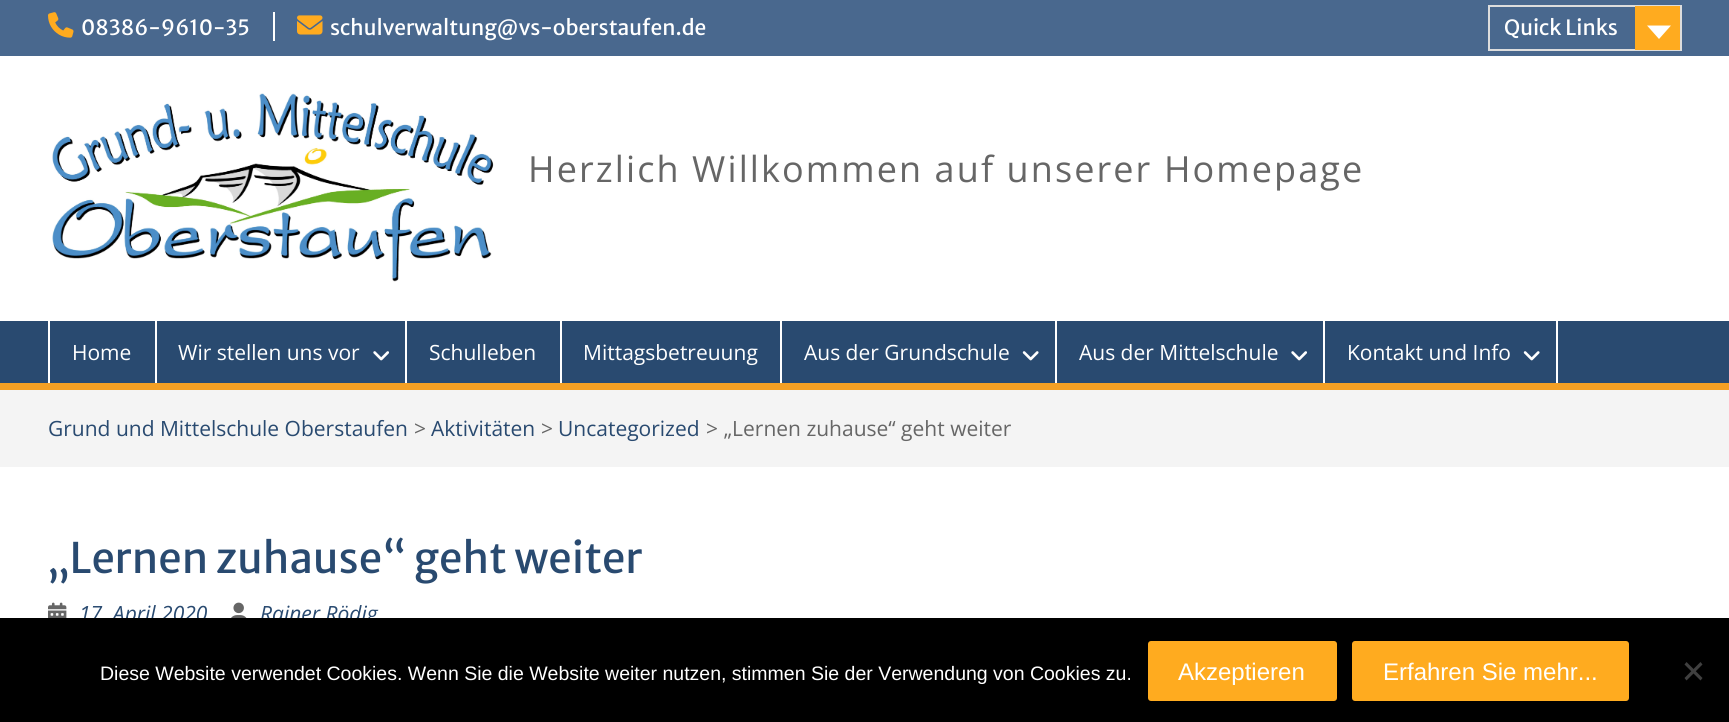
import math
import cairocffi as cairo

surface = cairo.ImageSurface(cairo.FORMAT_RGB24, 1729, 722)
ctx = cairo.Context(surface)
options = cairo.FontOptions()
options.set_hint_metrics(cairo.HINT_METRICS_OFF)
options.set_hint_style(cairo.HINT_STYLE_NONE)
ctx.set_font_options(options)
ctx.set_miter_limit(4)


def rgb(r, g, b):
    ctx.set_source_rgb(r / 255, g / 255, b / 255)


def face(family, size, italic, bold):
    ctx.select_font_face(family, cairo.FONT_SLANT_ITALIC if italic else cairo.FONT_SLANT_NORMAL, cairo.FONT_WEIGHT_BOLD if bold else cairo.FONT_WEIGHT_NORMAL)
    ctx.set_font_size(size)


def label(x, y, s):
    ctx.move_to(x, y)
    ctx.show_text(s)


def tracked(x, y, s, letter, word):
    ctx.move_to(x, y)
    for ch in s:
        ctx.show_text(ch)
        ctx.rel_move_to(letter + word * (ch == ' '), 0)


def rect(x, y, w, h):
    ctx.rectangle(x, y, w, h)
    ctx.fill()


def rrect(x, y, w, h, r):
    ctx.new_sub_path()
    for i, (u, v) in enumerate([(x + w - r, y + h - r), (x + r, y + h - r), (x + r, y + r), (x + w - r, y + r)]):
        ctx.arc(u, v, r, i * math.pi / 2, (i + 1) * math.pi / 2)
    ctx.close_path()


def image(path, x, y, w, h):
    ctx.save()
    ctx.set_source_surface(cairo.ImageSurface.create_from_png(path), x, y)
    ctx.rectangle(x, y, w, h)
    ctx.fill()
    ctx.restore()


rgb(255, 255, 255)
ctx.paint()
rgb(73, 104, 142)
rect(0, 0, 1729, 56)
image('image0.png', 48, 12, 26, 26)
face('Merriweather Sans', 21, 0, 0)
rgb(255, 255, 255)
label(81, 35, '08386-9610-35')
rect(273, 12, 2, 29)
image('image1.png', 297, 15, 26, 20)
label(330, 35, 'schulverwaltung@vs-oberstaufen.de')
ctx.rectangle(1489, 6, 192, 44)
rgb(221, 221, 221)
ctx.stroke()
rgb(255, 255, 255)
label(1504, 35, 'Quick Links')
rgb(255, 171, 31)
rect(1635, 6, 45, 44)
rgb(255, 255, 255)
ctx.new_path()
ctx.move_to(1647, 25.5)
ctx.line_to(1671, 25.5)
ctx.line_to(1659, 39)
ctx.close_path()
ctx.fill()
image('image2.png', 52, 93, 442, 189)
face('Open Sans', 36, 0, 0)
rgb(102, 102, 102)
tracked(528, 182, 'Herzlich Willkommen auf unserer Homepage', 2.1, 0)
rgb(41, 74, 112)
rect(0, 321, 1729, 62)
rgb(244, 160, 36)
rect(0, 383, 1729, 7)
rgb(255, 255, 255)
rect(155, 321, 2, 62)
rect(48, 321, 2, 62)
face('Open Sans', 21, 0, 0)
label(72, 360, 'Home')
rect(405, 321, 2, 62)
label(178, 360, 'Wir stellen uns vor')
image('image3.png', 373, 351, 16, 10)
rect(560, 321, 2, 62)
label(429, 360, 'Schulleben')
rect(780, 321, 2, 62)
label(583, 360, 'Mittagsbetreuung')
rect(1055, 321, 2, 62)
label(804, 360, 'Aus der Grundschule')
image('image4.png', 1022, 351, 17, 10)
rect(1323, 321, 2, 62)
label(1079, 360, 'Aus der Mittelschule')
image('image3.png', 1291, 351, 16, 10)
rect(1556, 321, 2, 62)
label(1347, 360, 'Kontakt und Info')
image('image4.png', 1523, 351, 17, 10)
rgb(244, 244, 244)
rect(0, 390, 1729, 77)
rgb(41, 74, 112)
label(48, 436, 'Grund und Mittelschule Oberstaufen')
rgb(102, 102, 102)
label(414, 436, '>')
rgb(41, 74, 112)
label(431, 436, 'Aktivitäten')
rgb(102, 102, 102)
label(541, 436, '>')
rgb(41, 74, 112)
label(558, 436, 'Uncategorized')
rgb(102, 102, 102)
label(706, 436, '> „Lernen zuhause“ geht weiter')
face('Merriweather Sans', 42, 0, 0)
rgb(41, 74, 112)
label(48, 573, '„Lernen zuhause“ geht weiter')
image('image5.png', 48, 602, 19, 16)
face('Open Sans', 21, 1, 0)
label(79, 621, '17. April 2020')
image('image6.png', 231, 602, 16, 16)
label(260, 621, 'Rainer Rödig')
rgb(0, 0, 0)
rect(0, 618, 1729, 104)
face('Liberation Sans', 19.5, 0, 0)
rgb(255, 255, 255)
label(100, 680, 'Diese Website verwendet Cookies. Wenn Sie die Website weiter nutzen, stimmen Sie der Verwendung von Cookies zu.')
rgb(255, 171, 31)
rrect(1148, 641, 189, 60, 3)
ctx.fill()
face('Liberation Sans', 24, 0, 0)
rgb(255, 255, 255)
label(1178, 680, 'Akzeptieren')
rgb(255, 171, 31)
rrect(1352, 641, 277, 60, 3)
ctx.fill()
rgb(255, 255, 255)
label(1383, 680, 'Erfahren Sie mehr...')
rgb(64, 64, 64)
ctx.new_path()
ctx.move_to(1700.5, 662)
ctx.line_to(1702.5, 664.5)
ctx.line_to(1686.5, 680.5)
ctx.line_to(1684.5, 678)
ctx.close_path()
ctx.fill()
ctx.new_path()
ctx.move_to(1684.5, 664.5)
ctx.line_to(1686.5, 662)
ctx.line_to(1702.5, 678)
ctx.line_to(1700.5, 680.5)
ctx.close_path()
ctx.fill()
surface.write_to_png('render.png')
